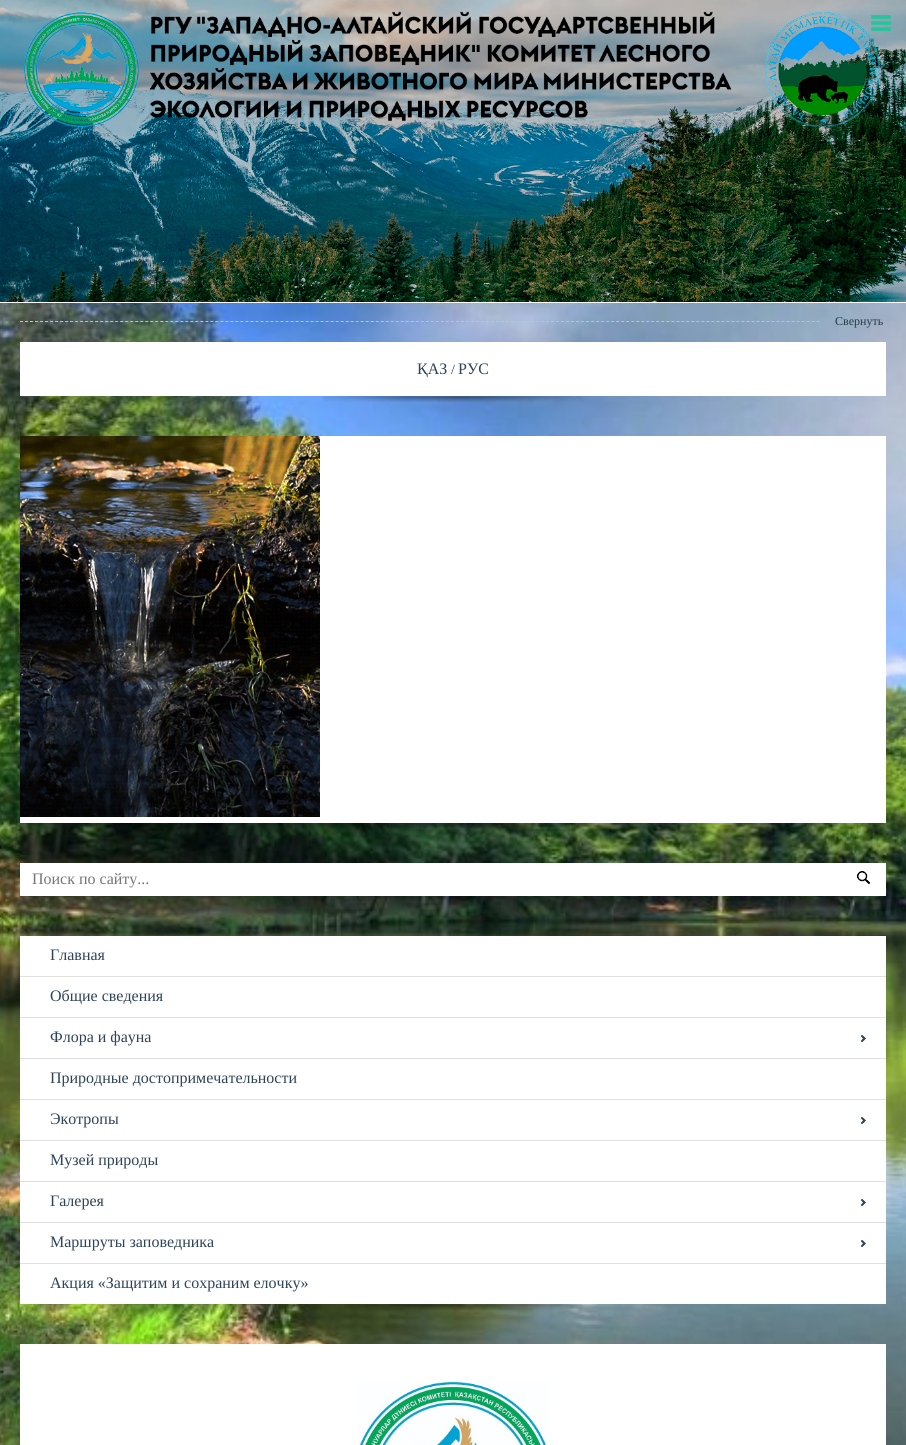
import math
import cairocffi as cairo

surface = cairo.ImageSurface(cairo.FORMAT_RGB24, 906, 1445)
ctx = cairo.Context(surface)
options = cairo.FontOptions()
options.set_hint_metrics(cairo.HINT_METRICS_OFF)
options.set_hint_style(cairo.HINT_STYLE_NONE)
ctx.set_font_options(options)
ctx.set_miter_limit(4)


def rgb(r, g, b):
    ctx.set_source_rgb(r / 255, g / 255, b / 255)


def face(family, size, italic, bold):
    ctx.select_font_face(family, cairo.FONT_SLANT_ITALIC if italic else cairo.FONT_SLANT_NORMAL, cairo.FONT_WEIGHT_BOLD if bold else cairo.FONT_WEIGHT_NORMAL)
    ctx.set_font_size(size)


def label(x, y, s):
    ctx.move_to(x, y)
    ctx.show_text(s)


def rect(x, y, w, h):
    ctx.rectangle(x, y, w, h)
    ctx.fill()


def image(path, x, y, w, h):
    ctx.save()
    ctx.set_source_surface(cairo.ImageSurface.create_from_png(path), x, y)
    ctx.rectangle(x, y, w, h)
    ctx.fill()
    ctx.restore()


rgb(255, 255, 255)
ctx.paint()
image('image0.png', 0, 0, 906, 302)
image('image1.png', 871, 15, 20, 16)
image('image2.png', 0, 303, 906, 1142)
ctx.new_path()
ctx.move_to(20, 321.5)
ctx.line_to(820, 321.5)
rgb(194, 194, 194)
ctx.set_line_width(1)
ctx.set_dash([3, 2.01])
ctx.stroke()
face('Liberation Serif', 12, 0, 0)
rgb(33, 59, 75)
label(835, 325, 'Свернуть')
rgb(255, 255, 255)
rect(20, 342, 866, 54)
face('Liberation Serif', 16, 0, 0)
rgb(45, 67, 89)
label(417, 374, 'ҚАЗ')
face('Liberation Serif', 14, 0, 0)
label(451, 374, '/')
face('Liberation Serif', 16, 0, 0)
label(458, 374, 'РУС')
image('image4.png', 322, 396, 261, 6)
image('image3.png', 322, 396, 261, 6)
rgb(255, 255, 255)
rect(20, 436, 866, 387)
image('image5.png', 20, 436, 300, 381)
image('image7.png', 368, 823, 195, 5)
image('image6.png', 225, 823, 544, 8)
rect(20, 863, 866, 33)
rgb(117, 117, 117)
label(32, 884, 'Поиск по сайту...')
image('image8.png', 857, 871, 13, 13)
image('image9.png', 348, 896, 201, 5)
rgb(255, 255, 255)
rect(20, 936, 866, 368)
rgb(224, 224, 224)
rect(20, 976, 866, 1)
rgb(45, 67, 89)
label(50, 960, 'Главная')
rgb(224, 224, 224)
rect(20, 1017, 866, 1)
rgb(45, 67, 89)
label(50, 1001, 'Общие сведения')
image('image10.png', 861, 1035, 5, 7)
rgb(224, 224, 224)
rect(20, 1058, 866, 1)
rgb(45, 67, 89)
label(50, 1042, 'Флора и фауна')
rgb(224, 224, 224)
rect(20, 1099, 866, 1)
rgb(45, 67, 89)
label(50, 1083, 'Природные достопримечательности')
image('image10.png', 861, 1117, 5, 7)
rgb(224, 224, 224)
rect(20, 1140, 866, 1)
rgb(45, 67, 89)
label(50, 1124, 'Экотропы')
rgb(224, 224, 224)
rect(20, 1181, 866, 1)
rgb(45, 67, 89)
label(50, 1165, 'Музей природы')
image('image10.png', 861, 1199, 5, 7)
rgb(224, 224, 224)
rect(20, 1222, 866, 1)
rgb(45, 67, 89)
label(50, 1206, 'Галерея')
image('image10.png', 861, 1240, 5, 7)
rgb(224, 224, 224)
rect(20, 1263, 866, 1)
rgb(45, 67, 89)
label(50, 1247, 'Маршруты заповедника')
label(50, 1288, 'Акция «Защитим и сохраним елочку»')
image('image12.png', 348, 1304, 235, 6)
image('image11.png', 351, 1304, 231, 6)
rgb(255, 255, 255)
rect(20, 1344, 866, 101)
image('image13.png', 359, 1382, 192, 63)
surface.write_to_png('render.png')
